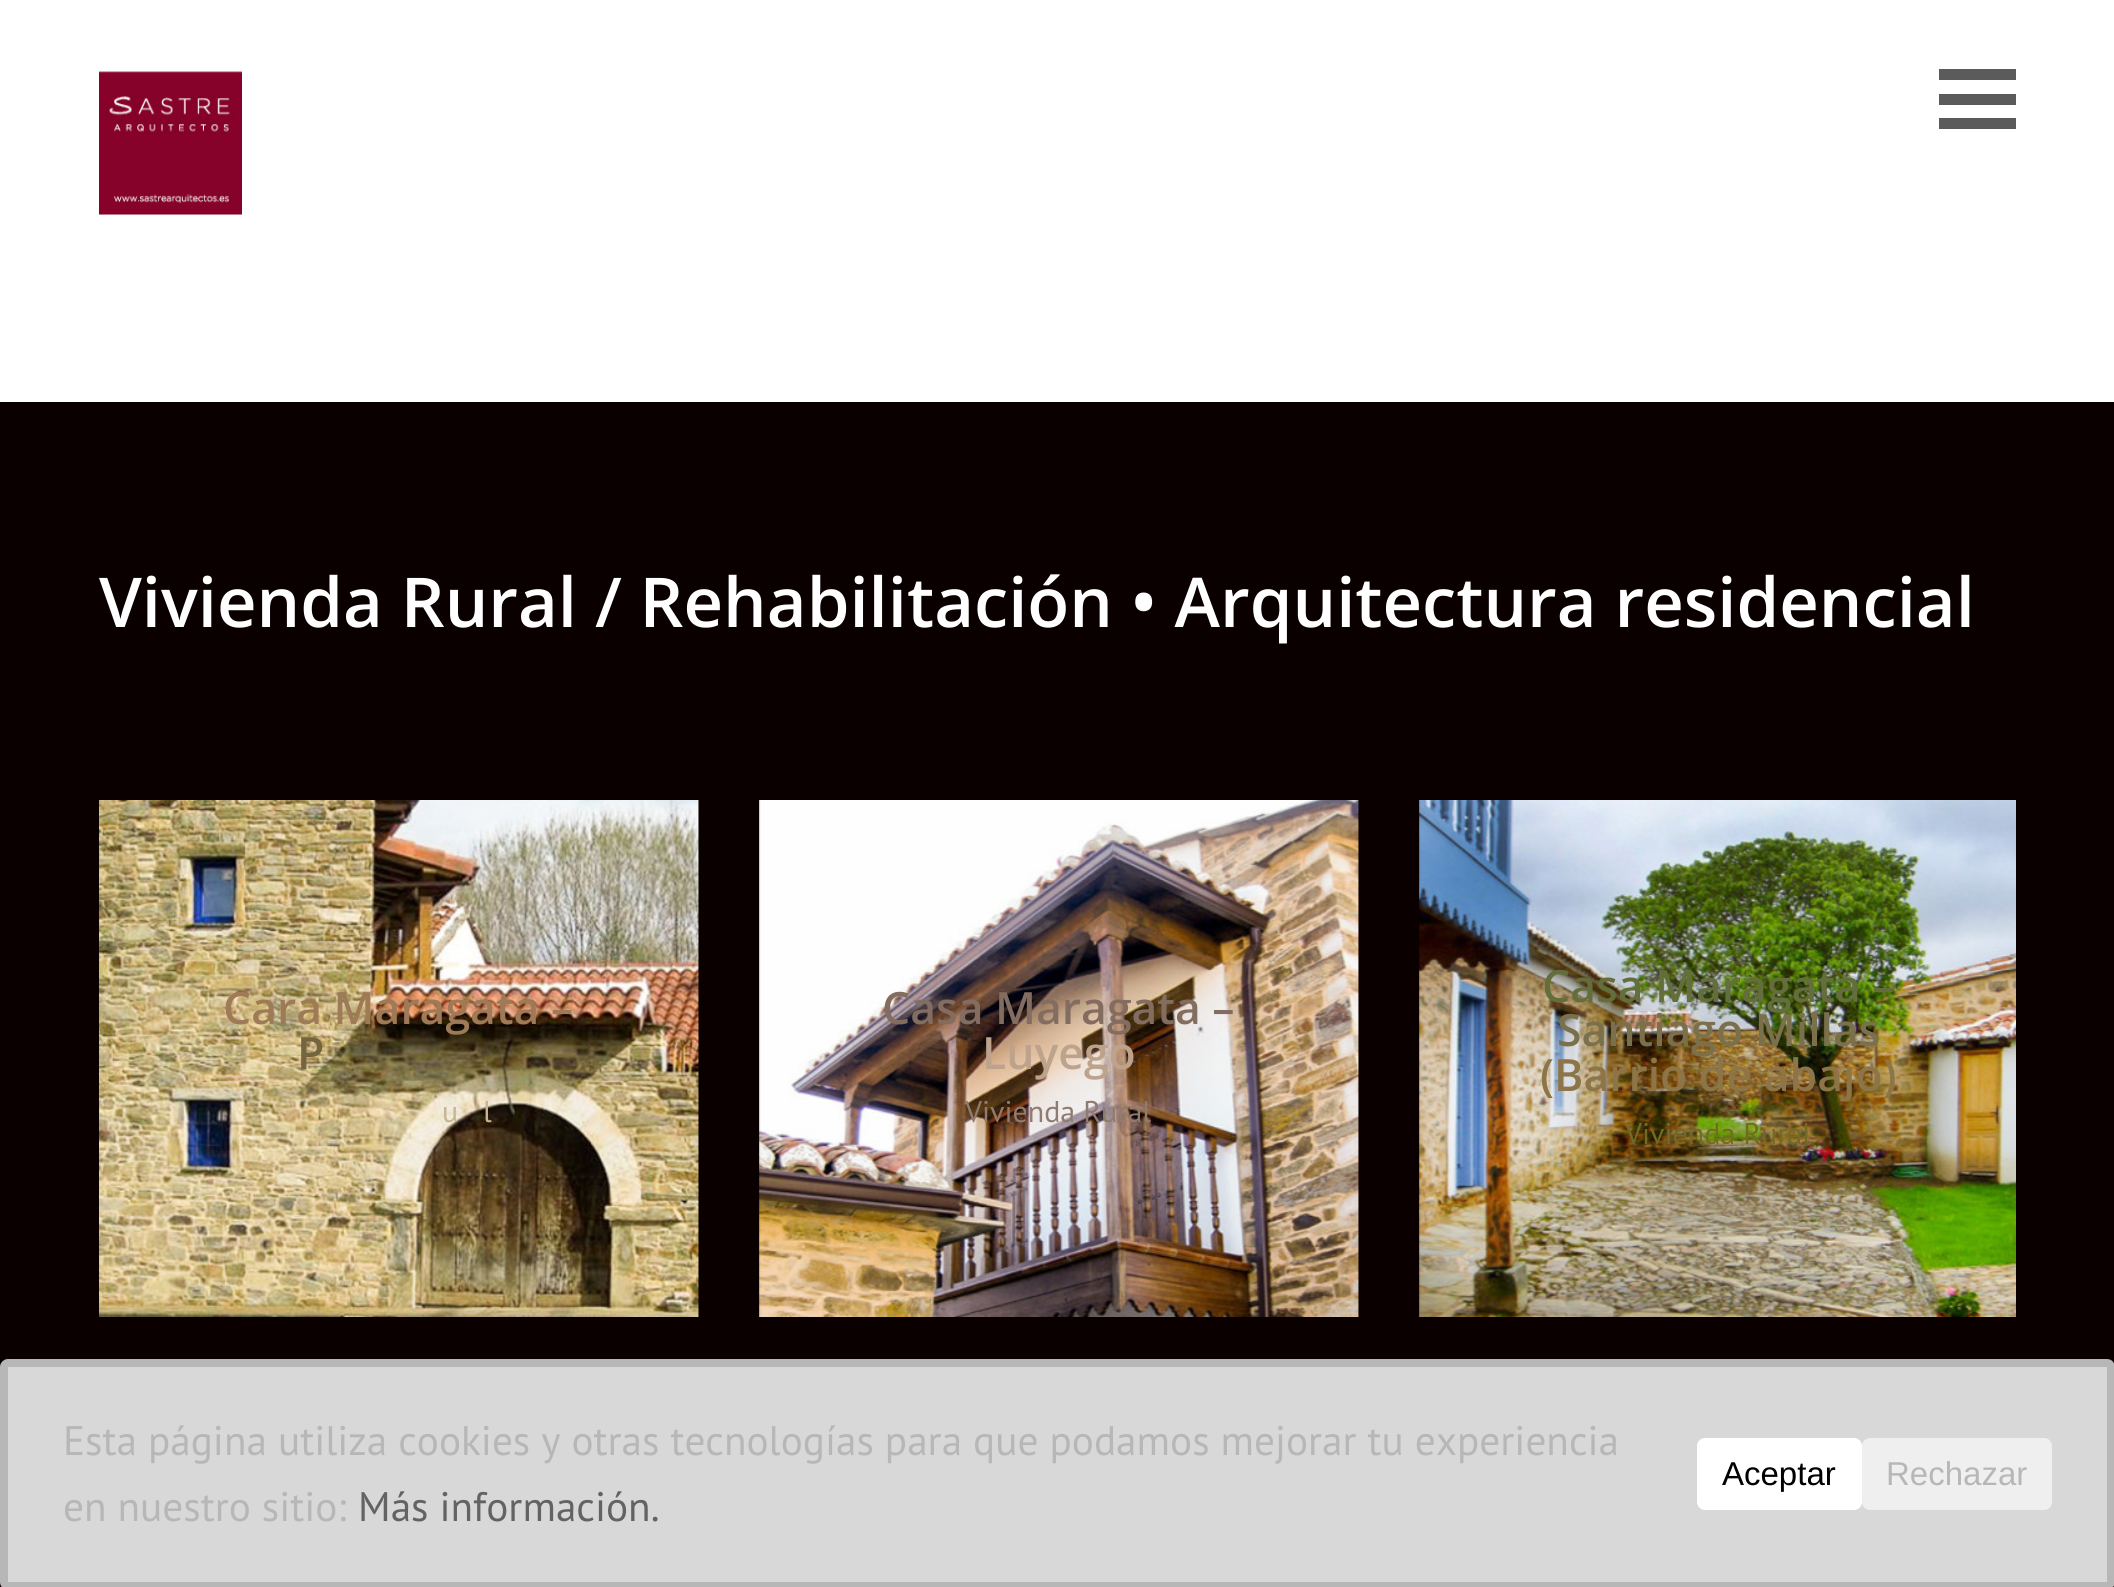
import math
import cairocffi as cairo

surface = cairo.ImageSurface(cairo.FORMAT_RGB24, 2114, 1587)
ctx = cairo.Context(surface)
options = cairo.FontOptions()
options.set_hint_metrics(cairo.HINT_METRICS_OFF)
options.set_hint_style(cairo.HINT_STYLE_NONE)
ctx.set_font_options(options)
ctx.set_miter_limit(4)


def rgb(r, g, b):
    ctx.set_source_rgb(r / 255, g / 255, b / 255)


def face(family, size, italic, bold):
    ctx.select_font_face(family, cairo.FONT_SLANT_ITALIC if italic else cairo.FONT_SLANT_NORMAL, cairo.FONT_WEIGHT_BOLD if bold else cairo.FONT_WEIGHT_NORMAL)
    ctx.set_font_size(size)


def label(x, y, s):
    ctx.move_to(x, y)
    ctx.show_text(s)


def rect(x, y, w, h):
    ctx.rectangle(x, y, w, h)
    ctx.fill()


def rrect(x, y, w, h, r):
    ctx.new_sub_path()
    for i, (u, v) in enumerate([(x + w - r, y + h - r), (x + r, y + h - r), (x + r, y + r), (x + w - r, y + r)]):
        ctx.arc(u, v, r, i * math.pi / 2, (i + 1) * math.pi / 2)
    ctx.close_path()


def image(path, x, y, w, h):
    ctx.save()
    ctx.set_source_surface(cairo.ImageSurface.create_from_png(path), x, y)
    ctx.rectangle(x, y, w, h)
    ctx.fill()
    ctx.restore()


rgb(255, 255, 255)
ctx.paint()
image('image0.png', 99, 71, 143, 144)
rgb(91, 91, 91)
rect(1939, 69, 77, 11)
rect(1939, 94, 77, 11)
rect(1939, 118, 77, 11)
rgb(10, 0, 0)
rect(0, 402, 2114, 1185)
face('Open Sans SemiBold', 68.75, 0, 0)
rgb(255, 255, 255)
label(99, 627, 'Vivienda Rural / Rehabilitación • Arquitectura residencial')
image('image1.png', 99, 800, 600, 517)
face('Open Sans SemiBold', 44.5, 0, 0)
rgb(158, 123, 86)
label(223, 1024, 'Cara Maragata –')
rgb(115, 101, 63)
label(297, 1069, 'P')
face('PT Sans', 30, 0, 0)
rgb(199, 181, 144)
label(442, 1122, 'u')
label(483, 1122, 'l')
image('image2.png', 759, 800, 600, 517)
face('Open Sans SemiBold', 44.5, 0, 0)
rgb(131, 109, 96)
label(882, 1024, 'Casa Maragata –')
rgb(189, 162, 140)
label(982, 1069, 'Luyego')
face('PT Sans', 30, 0, 0)
rgb(144, 123, 112)
label(965, 1122, 'Vivienda Rural')
image('image3.png', 1419, 800, 597, 517)
face('Open Sans SemiBold', 44.5, 0, 0)
rgb(100, 110, 61)
label(1542, 1002, 'Casa Maragata –')
rgb(123, 112, 76)
label(1557, 1046, 'Santiago Millas')
rgb(141, 117, 71)
label(1540, 1091, '(Barrio de abajo)')
face('PT Sans', 30, 0, 0)
rgb(115, 106, 36)
label(1625, 1144, 'Vivienda Rural')
rgb(216, 216, 216)
rrect(4, 1363, 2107, 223, 4)
ctx.fill_preserve()
rgb(183, 183, 183)
ctx.set_line_width(8)
ctx.stroke()
face('PT Sans', 41.25, 0, 0)
label(63, 1455, 'Esta página utiliza cookies y otras tecnologías para que podamos mejorar tu experiencia')
label(63, 1521, 'en nuestro sitio:')
rgb(99, 99, 99)
label(358, 1521, 'Más información.')
rgb(255, 255, 255)
rrect(1697, 1438, 165, 72, 8)
ctx.fill()
face('Liberation Sans', 33, 0, 0)
rgb(0, 0, 0)
label(1722, 1485, 'Aceptar')
rgb(239, 239, 239)
rrect(1862, 1438, 190, 72, 8)
ctx.fill()
rgb(183, 183, 183)
label(1886, 1485, 'Rechazar')
surface.write_to_png('render.png')
